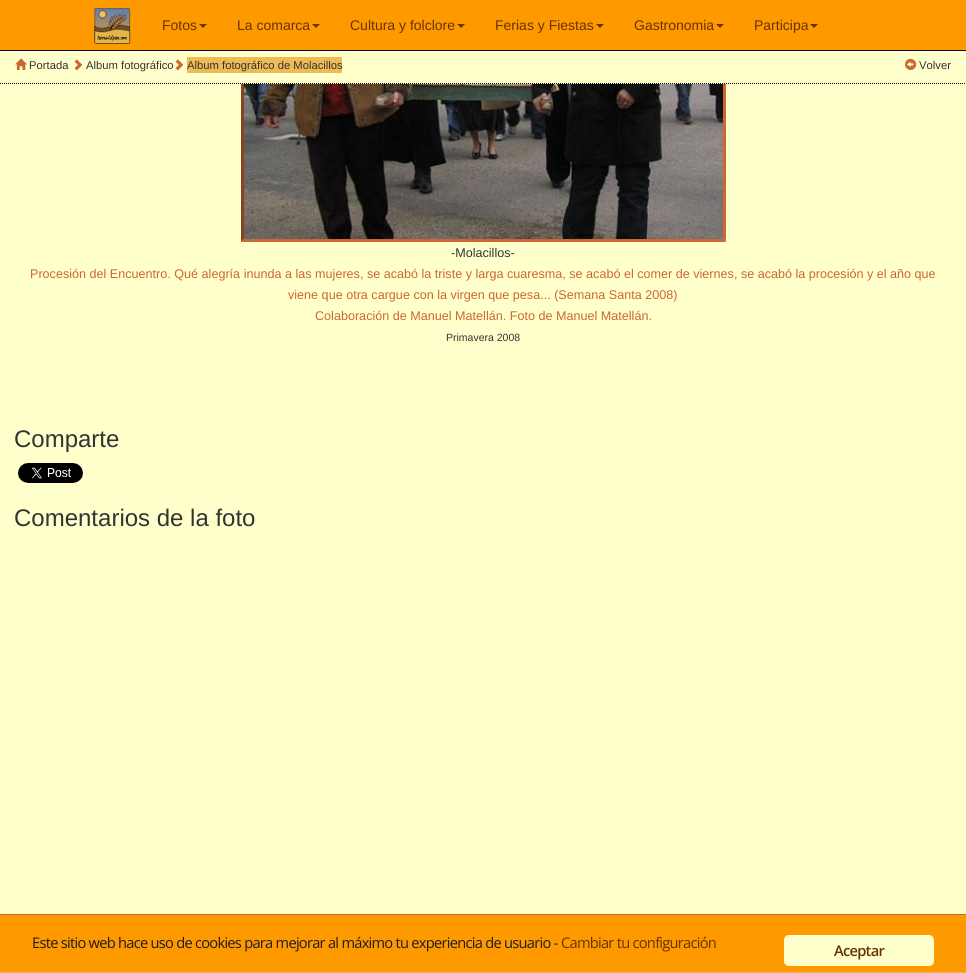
import math
import cairocffi as cairo

surface = cairo.ImageSurface(cairo.FORMAT_RGB24, 966, 973)
ctx = cairo.Context(surface)
options = cairo.FontOptions()
options.set_hint_metrics(cairo.HINT_METRICS_OFF)
options.set_hint_style(cairo.HINT_STYLE_NONE)
ctx.set_font_options(options)
ctx.set_miter_limit(4)


def rgb(r, g, b):
    ctx.set_source_rgb(r / 255, g / 255, b / 255)


def face(family, size, italic, bold):
    ctx.select_font_face(family, cairo.FONT_SLANT_ITALIC if italic else cairo.FONT_SLANT_NORMAL, cairo.FONT_WEIGHT_BOLD if bold else cairo.FONT_WEIGHT_NORMAL)
    ctx.set_font_size(size)


def label(x, y, s):
    ctx.move_to(x, y)
    ctx.show_text(s)


def tracked(x, y, s, letter, word):
    ctx.move_to(x, y)
    for ch in s:
        ctx.show_text(ch)
        ctx.rel_move_to(letter + word * (ch == ' '), 0)


def rect(x, y, w, h):
    ctx.rectangle(x, y, w, h)
    ctx.fill()


def rrect(x, y, w, h, r):
    ctx.new_sub_path()
    for i, (u, v) in enumerate([(x + w - r, y + h - r), (x + r, y + h - r), (x + r, y + r), (x + w - r, y + r)]):
        ctx.arc(u, v, r, i * math.pi / 2, (i + 1) * math.pi / 2)
    ctx.close_path()


def image(path, x, y, w, h):
    ctx.save()
    ctx.set_source_surface(cairo.ImageSurface.create_from_png(path), x, y)
    ctx.rectangle(x, y, w, h)
    ctx.fill()
    ctx.restore()


rgb(255, 255, 204)
ctx.paint()
rgb(204, 102, 51)
ctx.new_path()
ctx.move_to(726, -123)
ctx.line_to(726, 242)
ctx.line_to(723, 239)
ctx.line_to(723, -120)
ctx.close_path()
ctx.fill()
ctx.new_path()
ctx.move_to(726, 242)
ctx.line_to(241, 242)
ctx.line_to(244, 239)
ctx.line_to(723, 239)
ctx.close_path()
ctx.fill()
rgb(136, 68, 34)
ctx.new_path()
ctx.move_to(241, 242)
ctx.line_to(241, -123)
ctx.line_to(244, -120)
ctx.line_to(244, 239)
ctx.close_path()
ctx.fill()
rgb(255, 153, 0)
rect(0, 0, 966, 50)
rgb(8, 8, 8)
rect(0, 50, 966, 1)
image('image0.png', 94, 8, 37, 36)
face('Liberation Sans', 14, 0, 0)
rgb(102, 51, 0)
label(162, 30, 'Fotos')
ctx.new_path()
ctx.move_to(199, 24)
ctx.line_to(207, 24)
ctx.line_to(203, 28)
ctx.close_path()
ctx.fill()
label(237, 30, 'La comarca')
ctx.new_path()
ctx.move_to(312, 24)
ctx.line_to(320, 24)
ctx.line_to(316, 28)
ctx.close_path()
ctx.fill()
label(350, 30, 'Cultura y folclore')
ctx.new_path()
ctx.move_to(457, 24)
ctx.line_to(465, 24)
ctx.line_to(461, 28)
ctx.close_path()
ctx.fill()
label(495, 30, 'Ferias y Fiestas')
ctx.new_path()
ctx.move_to(596, 24)
ctx.line_to(604, 24)
ctx.line_to(600, 28)
ctx.close_path()
ctx.fill()
label(634, 30, 'Gastronomia')
ctx.new_path()
ctx.move_to(716, 24)
ctx.line_to(724, 24)
ctx.line_to(720, 28)
ctx.close_path()
ctx.fill()
label(754, 30, 'Participa')
ctx.new_path()
ctx.move_to(810, 24)
ctx.line_to(818, 24)
ctx.line_to(814, 28)
ctx.close_path()
ctx.fill()
rgb(255, 255, 204)
rect(241, 51, 485, 33)
ctx.new_path()
ctx.move_to(0, 83.5)
ctx.line_to(966, 83.5)
rgb(0, 0, 0)
ctx.set_line_width(1)
ctx.set_dash([1, 1])
ctx.stroke()
image('image1.png', 15, 58, 12, 12)
face('Liberation Sans', 11.25, 0, 0)
rgb(51, 51, 51)
label(29, 69, 'Portada')
image('image2.png', 74, 59, 9, 12)
label(86, 69, 'Album fotográfico')
image('image2.png', 175, 59, 9, 12)
rgb(238, 187, 85)
rect(187, 57, 155, 16)
rgb(51, 51, 51)
label(187, 69, 'Album fotográfico de Molacillos')
image('image3.png', 905, 58, 12, 12)
label(919, 69, 'Volver')
image('image4.png', 244, 84, 479, 155)
face('Liberation Sans', 12.6, 0, 0)
label(451, 257, '-Molacillos-')
rgb(204, 102, 51)
label(30, 278, 'Procesión del Encuentro. Qué alegría inunda a las mujeres, se acabó la triste y larga cuaresma, se acabó el comer de viernes, se acabó la procesión y el año que')
label(288, 299, 'viene que otra cargue con la virgen que pesa... (Semana Santa 2008)')
label(315, 320, 'Colaboración de Manuel Matellán. Foto de Manuel Matellán.')
face('Liberation Sans', 10.5, 0, 0)
rgb(51, 51, 51)
label(446, 341, 'Primavera 2008')
face('Liberation Sans', 24, 0, 0)
label(14, 447, 'Comparte')
image('image5.png', 18, 463, 65, 20)
label(14, 526, 'Comentarios de la foto')
rgb(255, 153, 0)
rect(0, 915, 966, 58)
rgb(204, 102, 51)
rect(0, 914, 966, 1)
ctx.new_path()
ctx.move_to(0, 972.5)
ctx.line_to(966, 972.5)
rgb(204, 204, 204)
ctx.stroke()
face('Open Sans', 14.65, 0, 0)
rgb(29, 29, 29)
tracked(32, 948, 'Este sitio web hace uso de cookies para mejorar al máximo tu experiencia de usuario -', -0.73, 0)
rgb(102, 51, 0)
tracked(561, 948, 'Cambiar tu configuración', -0.73, 0)
rgb(255, 255, 204)
rrect(784, 935, 150, 31, 5)
ctx.fill()
face('Open Sans SemiBold', 14.65, 0, 0)
rgb(102, 51, 0)
tracked(834, 956, 'Aceptar', -0.73, 0)
surface.write_to_png('render.png')
